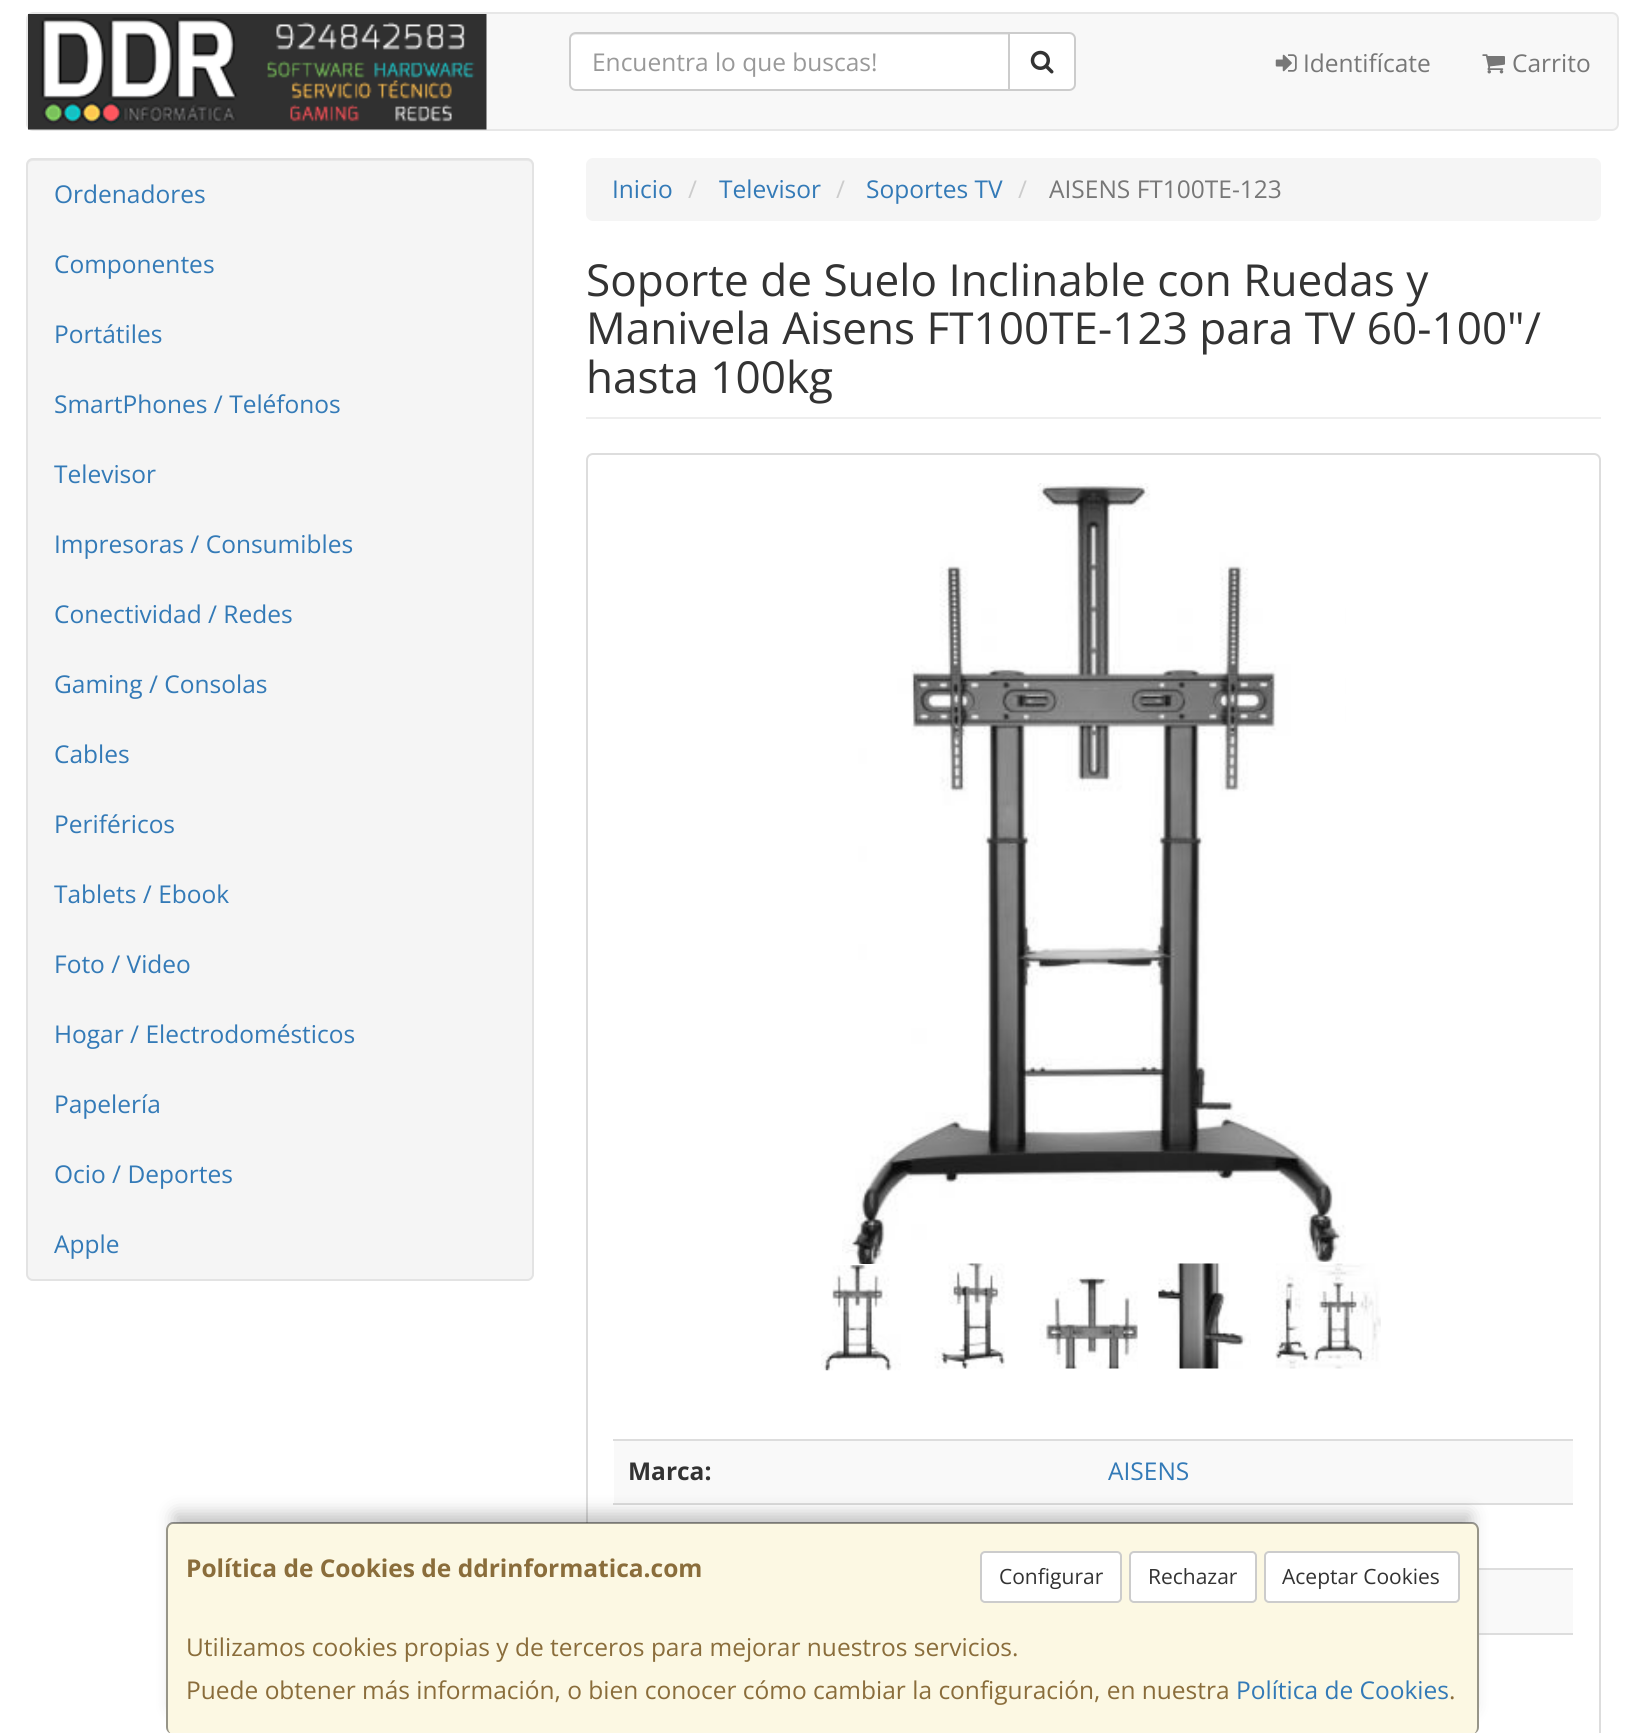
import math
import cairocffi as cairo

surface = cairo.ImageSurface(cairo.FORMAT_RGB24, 1644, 1733)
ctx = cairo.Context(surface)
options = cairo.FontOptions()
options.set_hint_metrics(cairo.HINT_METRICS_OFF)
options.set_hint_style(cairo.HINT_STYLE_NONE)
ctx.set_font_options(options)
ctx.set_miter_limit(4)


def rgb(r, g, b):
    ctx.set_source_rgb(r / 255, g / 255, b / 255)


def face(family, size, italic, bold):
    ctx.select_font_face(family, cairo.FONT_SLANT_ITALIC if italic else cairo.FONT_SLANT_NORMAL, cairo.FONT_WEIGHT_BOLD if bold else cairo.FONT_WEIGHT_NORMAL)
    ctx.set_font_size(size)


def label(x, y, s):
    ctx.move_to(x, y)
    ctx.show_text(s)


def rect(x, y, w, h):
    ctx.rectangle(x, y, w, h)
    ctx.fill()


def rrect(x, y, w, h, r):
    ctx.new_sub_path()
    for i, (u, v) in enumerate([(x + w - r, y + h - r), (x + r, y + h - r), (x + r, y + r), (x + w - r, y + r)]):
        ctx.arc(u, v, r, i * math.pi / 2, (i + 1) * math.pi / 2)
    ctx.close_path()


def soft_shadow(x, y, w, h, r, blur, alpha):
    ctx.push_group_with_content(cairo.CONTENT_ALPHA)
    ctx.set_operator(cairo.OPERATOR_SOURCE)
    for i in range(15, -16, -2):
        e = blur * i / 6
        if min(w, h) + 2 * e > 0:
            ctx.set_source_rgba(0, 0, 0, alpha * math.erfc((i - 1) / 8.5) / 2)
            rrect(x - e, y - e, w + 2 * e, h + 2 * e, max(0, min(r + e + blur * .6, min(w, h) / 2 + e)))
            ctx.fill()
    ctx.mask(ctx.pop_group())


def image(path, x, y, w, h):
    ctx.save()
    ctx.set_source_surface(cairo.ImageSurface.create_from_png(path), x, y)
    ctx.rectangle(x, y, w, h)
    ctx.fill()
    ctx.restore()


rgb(255, 255, 255)
ctx.paint()
rgb(248, 248, 248)
rrect(27, 13, 1591, 117, 6)
ctx.fill_preserve()
rgb(231, 231, 231)
ctx.stroke()
image('image0.png', 28, 14, 459, 116)
rgb(255, 255, 255)
ctx.new_path()
ctx.move_to(1009, 33)
ctx.line_to(1069, 33)
ctx.curve_to(1072.5, 33, 1075, 35.5, 1075, 39)
ctx.line_to(1075, 84)
ctx.curve_to(1075, 87.5, 1072.5, 90, 1069, 90)
ctx.line_to(1009, 90)
ctx.close_path()
ctx.fill_preserve()
rgb(204, 204, 204)
ctx.stroke()
rgb(255, 255, 255)
ctx.new_path()
ctx.move_to(576, 32)
ctx.line_to(1010, 32)
ctx.line_to(1010, 91)
ctx.line_to(576, 91)
ctx.curve_to(572, 91, 569, 88, 569, 84)
ctx.line_to(569, 39)
ctx.curve_to(569, 35, 572, 32, 576, 32)
ctx.close_path()
ctx.fill()
rgb(236, 236, 236)
ctx.new_path()
ctx.move_to(576, 35)
ctx.line_to(1008, 35)
ctx.line_to(1008, 33)
ctx.line_to(576, 33)
ctx.curve_to(574, 33, 571, 35, 571, 37)
ctx.curve_to(572, 36, 574, 35, 576, 35)
ctx.close_path()
ctx.fill()
ctx.new_path()
ctx.move_to(576, 33)
ctx.line_to(1009, 33)
ctx.line_to(1009, 90)
ctx.line_to(576, 90)
ctx.curve_to(572.5, 90, 570, 87.5, 570, 84)
ctx.line_to(570, 39)
ctx.curve_to(570, 35.5, 572.5, 33, 576, 33)
ctx.close_path()
rgb(204, 204, 204)
ctx.stroke()
face('Open Sans', 24.5, 0, 0)
rgb(153, 153, 153)
label(592, 71, 'Encuentra lo que buscas!')
image('image1.png', 1030, 50, 24, 24)
image('image2.png', 1275, 54, 22, 18)
rgb(119, 119, 119)
label(1303, 72, 'Identifícate')
image('image3.png', 1482, 54, 23, 20)
label(1512, 72, 'Carrito')
rgb(245, 245, 245)
rrect(26, 158, 508, 1123, 7)
ctx.fill()
rgb(233, 233, 233)
ctx.new_path()
ctx.move_to(33, 161)
ctx.line_to(527, 161)
ctx.curve_to(530, 161, 532, 163, 532, 166)
ctx.line_to(532, 164)
ctx.curve_to(532, 161, 530, 159, 527, 159)
ctx.line_to(33, 159)
ctx.curve_to(30, 159, 28, 161, 28, 164)
ctx.line_to(28, 166)
ctx.curve_to(28, 163, 30, 161, 33, 161)
ctx.close_path()
ctx.fill()
rrect(27, 159, 506, 1121, 6)
rgb(227, 227, 227)
ctx.stroke()
rgb(51, 122, 183)
label(54, 203, 'Ordenadores')
label(54, 273, 'Componentes')
label(54, 343, 'Portátiles')
label(54, 413, 'SmartPhones / Teléfonos')
label(54, 483, 'Televisor')
label(54, 553, 'Impresoras / Consumibles')
label(54, 623, 'Conectividad / Redes')
label(54, 693, 'Gaming / Consolas')
label(54, 763, 'Cables')
label(54, 833, 'Periféricos')
label(54, 903, 'Tablets / Ebook')
label(54, 973, 'Foto / Video')
label(54, 1043, 'Hogar / Electrodomésticos')
label(54, 1113, 'Papelería')
label(54, 1183, 'Ocio / Deportes')
label(54, 1253, 'Apple')
rgb(245, 245, 245)
rrect(586, 158, 1015, 63, 7)
ctx.fill()
rgb(51, 122, 183)
label(612, 198, 'Inicio')
rgb(204, 204, 204)
label(688, 198, '/')
rgb(51, 122, 183)
label(719, 198, 'Televisor')
rgb(204, 204, 204)
label(836, 198, '/')
rgb(51, 122, 183)
label(866, 198, 'Soportes TV')
rgb(204, 204, 204)
label(1018, 198, '/')
rgb(119, 119, 119)
label(1049, 198, 'AISENS FT100TE-123')
rgb(238, 238, 238)
rect(586, 417, 1015, 2)
face('Open Sans', 44.1, 0, 0)
rgb(51, 51, 51)
label(586, 296, 'Soporte de Suelo Inclinable con Ruedas y')
label(586, 344, 'Manivela Aisens FT100TE-123 para TV 60-100"/')
label(586, 393, 'hasta 100kg')
rrect(587, 454, 1013, 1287, 6)
rgb(221, 221, 221)
ctx.stroke()
image('image4.png', 842, 483, 504, 784)
rgb(255, 255, 255)
rrect(803, 1264, 109, 105, 18)
ctx.fill()
image('image5.png', 821, 1265, 80, 106)
image('image6.png', 934, 1263, 71, 106)
image('image7.png', 1039, 1277, 99, 92)
image('image8.png', 1158, 1263, 93, 106)
rrect(1275, 1263, 107, 103, 17)
ctx.stroke()
image('image9.png', 1275, 1263, 106, 106)
rgb(249, 249, 249)
rect(614, 1441, 959, 62)
face('Open Sans', 24.5, 0, 1)
rgb(51, 51, 51)
label(628, 1480, 'Marca:')
rgb(221, 221, 221)
rect(613, 1439, 960, 2)
face('Open Sans', 24.5, 0, 0)
rgb(51, 122, 183)
label(1108, 1480, 'AISENS')
rgb(221, 221, 221)
rect(613, 1503, 960, 2)
rgb(249, 249, 249)
rect(1479, 1570, 94, 63)
rgb(221, 221, 221)
rect(1479, 1568, 94, 2)
rect(1479, 1633, 94, 2)
rgb(0, 0, 0)
soft_shadow(175, 1514, 1295, 194, 0, 9, 0.25)
rgb(252, 248, 227)
rrect(166, 1523, 1313, 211, 7)
ctx.fill()
ctx.set_source_rgba(0, 0, 0, 0.4)
ctx.set_fill_rule(cairo.FILL_RULE_EVEN_ODD)
ctx.new_path()
ctx.move_to(173, 1522)
ctx.line_to(1472, 1522)
ctx.curve_to(1476, 1522, 1479, 1526, 1479, 1530)
ctx.line_to(1479, 1727)
ctx.curve_to(1479, 1731, 1476, 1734, 1472, 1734)
ctx.line_to(173, 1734)
ctx.curve_to(169, 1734, 166, 1731, 166, 1727)
ctx.line_to(166, 1530)
ctx.curve_to(166, 1526, 169, 1522, 173, 1522)
ctx.close_path()
ctx.move_to(173, 1524)
ctx.line_to(1472, 1524)
ctx.curve_to(1475, 1524, 1477, 1527, 1477, 1530)
ctx.line_to(1477, 1727)
ctx.curve_to(1477, 1731, 1475, 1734, 1472, 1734)
ctx.line_to(173, 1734)
ctx.curve_to(170, 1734, 168, 1731, 168, 1727)
ctx.line_to(168, 1530)
ctx.curve_to(168, 1527, 170, 1524, 173, 1524)
ctx.close_path()
ctx.fill()
face('Open Sans', 24.5, 0, 1)
rgb(138, 109, 59)
label(186, 1577, 'Política de Cookies de ddrinformatica.com')
rgb(255, 255, 255)
rrect(981, 1552, 140, 50, 4)
ctx.fill_preserve()
rgb(204, 204, 204)
ctx.stroke()
face('Open Sans', 21, 0, 0)
rgb(51, 51, 51)
label(999, 1584, 'Configurar')
rgb(255, 255, 255)
rrect(1130, 1552, 126, 50, 4)
ctx.fill_preserve()
rgb(204, 204, 204)
ctx.stroke()
rgb(51, 51, 51)
label(1148, 1584, 'Rechazar')
rgb(255, 255, 255)
rrect(1265, 1552, 194, 50, 4)
ctx.fill_preserve()
rgb(204, 204, 204)
ctx.stroke()
rgb(51, 51, 51)
label(1282, 1584, 'Aceptar Cookies')
face('Open Sans', 24.5, 0, 0)
rgb(138, 109, 59)
label(186, 1656, 'Utilizamos cookies propias y de terceros para mejorar nuestros servicios.')
label(186, 1699, 'Puede obtener más información, o bien conocer cómo cambiar la configuración, en nuestra')
rgb(51, 122, 183)
label(1236, 1699, 'Política de Cookies')
rgb(138, 109, 59)
label(1449, 1699, '.')
surface.write_to_png('render.png')
